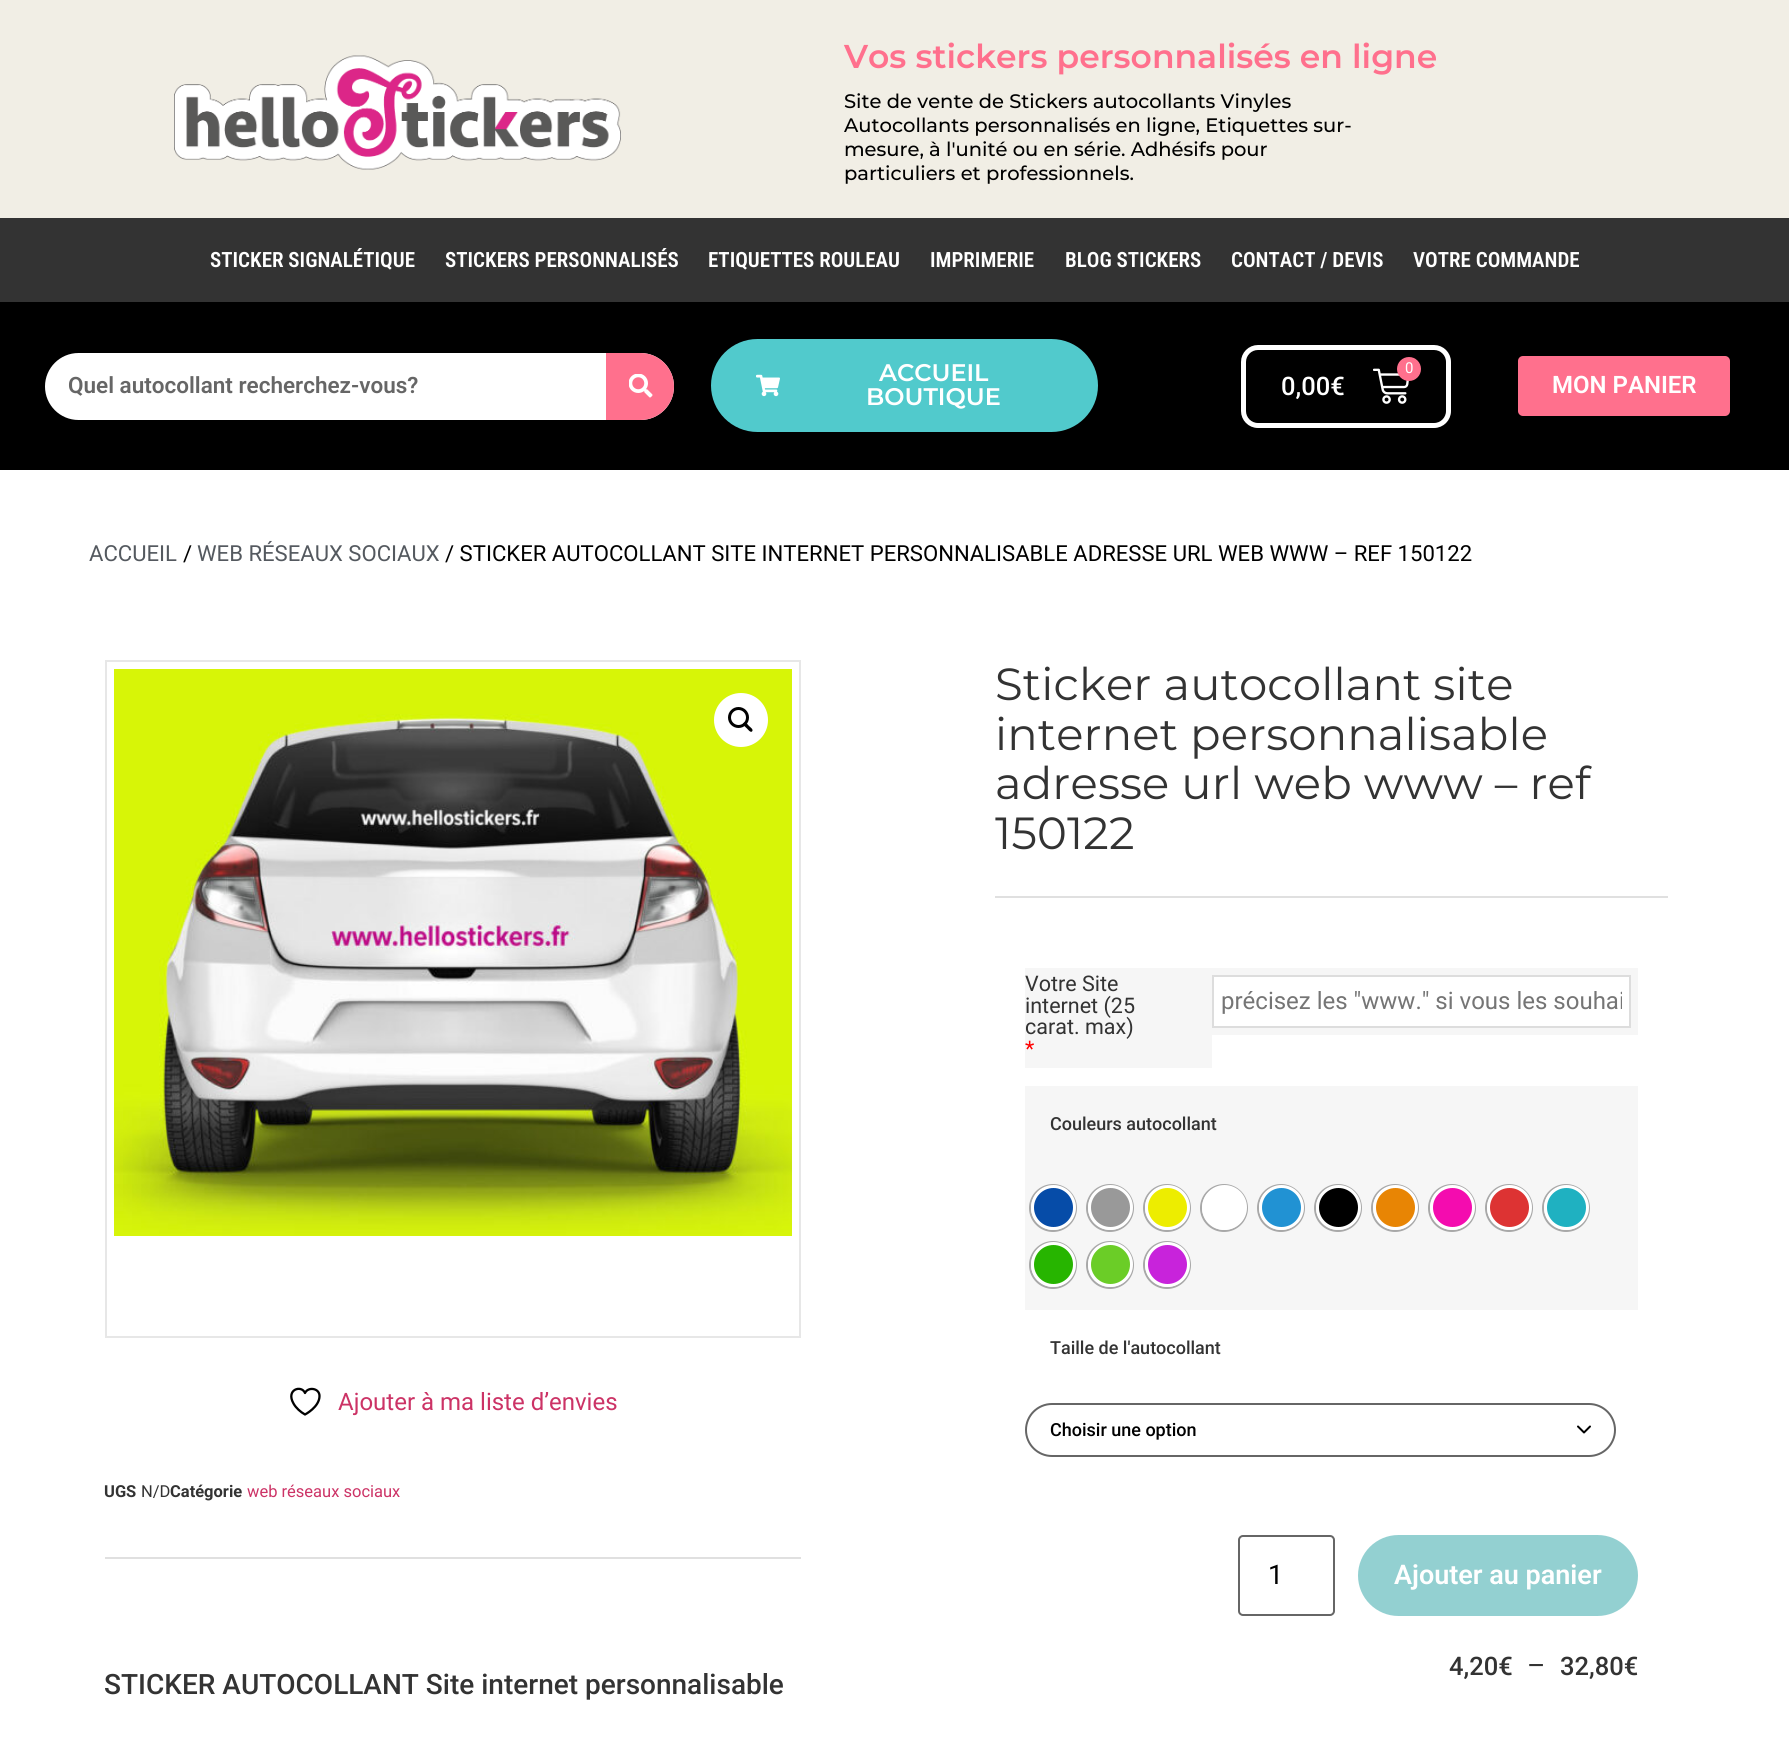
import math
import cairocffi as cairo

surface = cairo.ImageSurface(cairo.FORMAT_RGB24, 1789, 1762)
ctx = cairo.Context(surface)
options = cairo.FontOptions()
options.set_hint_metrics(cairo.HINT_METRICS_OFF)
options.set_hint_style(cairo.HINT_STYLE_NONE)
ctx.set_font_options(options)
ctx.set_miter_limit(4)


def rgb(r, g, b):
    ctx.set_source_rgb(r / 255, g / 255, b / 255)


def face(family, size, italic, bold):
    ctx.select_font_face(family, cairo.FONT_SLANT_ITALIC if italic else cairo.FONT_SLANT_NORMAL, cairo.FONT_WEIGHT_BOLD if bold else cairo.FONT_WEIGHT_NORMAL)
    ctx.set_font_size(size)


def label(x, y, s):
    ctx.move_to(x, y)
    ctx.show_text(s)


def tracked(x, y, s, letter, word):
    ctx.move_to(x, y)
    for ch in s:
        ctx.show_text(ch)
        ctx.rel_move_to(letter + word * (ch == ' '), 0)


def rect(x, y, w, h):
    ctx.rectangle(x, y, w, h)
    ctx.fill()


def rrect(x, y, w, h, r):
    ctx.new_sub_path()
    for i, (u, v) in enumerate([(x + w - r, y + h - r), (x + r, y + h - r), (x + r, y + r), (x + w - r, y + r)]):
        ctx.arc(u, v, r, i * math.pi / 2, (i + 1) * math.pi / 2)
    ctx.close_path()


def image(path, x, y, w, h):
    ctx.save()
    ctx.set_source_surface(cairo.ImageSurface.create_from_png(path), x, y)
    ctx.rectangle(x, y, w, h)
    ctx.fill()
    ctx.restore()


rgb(255, 255, 255)
ctx.paint()
rgb(241, 238, 229)
rect(0, 0, 1789, 218)
image('image0.png', 174, 55, 447, 115)
face('Montserrat SemiBold', 33, 0, 0)
rgb(255, 112, 141)
label(844, 68, 'Vos stickers personnalisés en ligne')
face('Montserrat Medium', 19.5, 0, 0)
rgb(0, 0, 0)
label(844, 108, 'Site de vente de Stickers autocollants Vinyles')
label(844, 132, 'Autocollants personnalisés en ligne, Etiquettes sur-')
label(844, 156, 'mesure, à l\'unité ou en série. Adhésifs pour')
label(844, 180, 'particuliers et professionnels.')
rgb(51, 51, 51)
rect(0, 218, 1789, 84)
face('Roboto Condensed SemiBold', 21, 0, 0)
rgb(255, 255, 255)
label(210, 267, 'STICKER SIGNALÉTIQUE')
label(445, 267, 'STICKERS PERSONNALISÉS')
label(708, 267, 'ETIQUETTES ROULEAU')
label(930, 267, 'IMPRIMERIE')
label(1065, 267, 'BLOG STICKERS')
label(1231, 267, 'CONTACT / DEVIS')
label(1413, 267, 'VOTRE COMMANDE')
rgb(0, 0, 0)
rect(0, 302, 1789, 168)
rgb(255, 255, 255)
rrect(45, 353, 629, 67, 33.5)
ctx.fill()
face('Roboto SemiBold', 22.5, 0, 0)
rgb(102, 102, 102)
label(68, 393, 'Quel autocollant recherchez-vous?')
rgb(255, 112, 141)
ctx.new_path()
ctx.move_to(606, 353)
ctx.line_to(640.5, 353)
ctx.curve_to(659, 353, 674, 368, 674, 386.5)
ctx.curve_to(674, 405, 659, 420, 640.5, 420)
ctx.line_to(606, 420)
ctx.close_path()
ctx.fill()
image('image1.png', 629, 374, 24, 24)
rgb(81, 202, 204)
rrect(711, 339, 387, 93, 46.5)
ctx.fill()
image('image2.png', 756, 374, 24, 23)
face('Montserrat SemiBold', 24, 0, 0)
rgb(255, 255, 255)
label(879, 381, 'ACCUEIL')
label(866, 405, 'BOUTIQUE')
rrect(1243.5, 347.5, 205, 78, 14.5)
ctx.set_line_width(5)
ctx.stroke()
image('image3.png', 1373, 368, 36, 36)
rgb(255, 112, 141)
ctx.arc(1409, 369, 12, 0, 2 * math.pi)
ctx.fill()
face('Roboto', 15, 0, 0)
rgb(255, 255, 255)
label(1405, 373, '0')
face('Roboto Medium', 25.5, 0, 0)
label(1281, 395, '0,00€')
rgb(255, 112, 141)
rrect(1518, 356, 212, 60, 5)
ctx.fill()
face('Roboto SemiBold', 24, 0, 0)
rgb(255, 255, 255)
label(1552, 393, 'MON PANIER')
face('Roboto', 22.1, 0, 0)
rgb(84, 89, 95)
label(89, 561, 'ACCUEIL')
rgb(0, 0, 0)
label(183, 561, '/')
rgb(84, 89, 95)
label(197, 561, 'WEB RÉSEAUX SOCIAUX')
rgb(0, 0, 0)
label(445, 561, '/ STICKER AUTOCOLLANT SITE INTERNET PERSONNALISABLE ADRESSE URL WEB WWW – REF 150122')
ctx.rectangle(106, 661, 694, 676)
rgb(231, 231, 231)
ctx.set_line_width(2)
ctx.stroke()
image('image4.png', 114, 669, 678, 567)
rgb(255, 255, 255)
ctx.arc(741, 720, 27, 0, 2 * math.pi)
ctx.fill()
ctx.arc(738.5, 717.5, 9, 0, 2 * math.pi)
rgb(0, 0, 0)
ctx.set_line_width(3)
ctx.stroke()
ctx.new_path()
ctx.move_to(743.5, 723)
ctx.curve_to(745.5, 721, 748, 725, 749, 726)
ctx.curve_to(750, 727, 754, 729.5, 752, 731.5)
ctx.curve_to(750.5, 733, 747.5, 729, 747, 728.5)
ctx.curve_to(746, 727.5, 742, 724.5, 743.5, 723)
ctx.close_path()
ctx.fill()
ctx.new_path()
ctx.move_to(319.5, 1396)
ctx.curve_to(319.5, 1388, 308, 1386.5, 305, 1393)
ctx.curve_to(301.5, 1384.5, 285.5, 1389.5, 293.5, 1403.5)
ctx.curve_to(296, 1408, 300.5, 1412, 305, 1414.5)
ctx.curve_to(305, 1414.5, 319.5, 1407, 319.5, 1396)
ctx.close_path()
ctx.set_line_width(2.3)
ctx.set_line_cap(cairo.LINE_CAP_ROUND)
ctx.set_line_join(cairo.LINE_JOIN_ROUND)
ctx.stroke()
face('Roboto', 24, 0, 0)
rgb(204, 51, 102)
label(338, 1410, 'Ajouter à ma liste d’envies')
face('Roboto', 16.5, 0, 1)
rgb(51, 51, 51)
label(104, 1497, 'UGS')
face('Roboto', 16.5, 0, 0)
label(141, 1497, 'N/D')
face('Roboto', 16.5, 0, 1)
label(170, 1497, 'Catégorie')
face('Roboto', 16.5, 0, 0)
rgb(204, 51, 102)
label(247, 1497, 'web réseaux sociaux')
rgb(224, 224, 224)
rect(105, 1557, 696, 2)
face('Roboto Medium', 28, 0, 0)
rgb(51, 51, 51)
label(104, 1694, 'STICKER AUTOCOLLANT Site internet personnalisable')
face('Montserrat', 45, 0, 0)
tracked(995, 700, 'Sticker autocollant site', 0.15, 0)
tracked(995, 750, 'internet personnalisable', 0.15, 0)
tracked(995, 799, 'adresse url web www – ref', 0.15, 0)
tracked(995, 849, '150122', 0.15, 0)
rgb(224, 224, 224)
rect(995, 896, 673, 2)
rgb(246, 246, 246)
rect(1025, 968, 187, 100)
face('Roboto', 21.5, 0, 0)
rgb(51, 51, 51)
label(1025, 991, 'Votre Site')
label(1025, 1013, 'internet (25')
label(1025, 1034, 'carat. max)')
rgb(255, 0, 0)
label(1025, 1056, '*')
rgb(246, 246, 246)
rect(1212, 968, 426, 67)
rgb(255, 255, 255)
ctx.rectangle(1213, 976, 417, 51)
ctx.fill_preserve()
rgb(221, 221, 221)
ctx.set_line_width(2)
ctx.set_line_cap(cairo.LINE_CAP_BUTT)
ctx.set_line_join(cairo.LINE_JOIN_MITER)
ctx.stroke()
ctx.save()
ctx.rectangle(1221, 987, 401, 29)
ctx.clip()
face('Roboto', 24, 0, 0)
rgb(117, 117, 117)
label(1221, 1009, 'précisez les "www." si vous les souhai')
ctx.restore()
rgb(246, 246, 246)
rect(1025, 1086, 613, 224)
face('Roboto Medium', 18, 0, 0)
rgb(51, 51, 51)
label(1050, 1130, 'Couleurs autocollant')
ctx.new_path()
ctx.arc(1053, 1208, 23, 0, 2 * math.pi)
rgb(168, 168, 168)
ctx.stroke()
rgb(255, 255, 255)
ctx.arc(1053.5, 1207.5, 22.5, 0, 2 * math.pi)
ctx.fill()
rgb(6, 76, 168)
ctx.arc(1053.5, 1207.5, 19.5, 0, 2 * math.pi)
ctx.fill()
ctx.arc(1110, 1208, 23, 0, 2 * math.pi)
rgb(168, 168, 168)
ctx.stroke()
rgb(255, 255, 255)
ctx.arc(1110.5, 1207.5, 22.5, 0, 2 * math.pi)
ctx.fill()
rgb(153, 153, 153)
ctx.arc(1110.5, 1207.5, 19.5, 0, 2 * math.pi)
ctx.fill()
ctx.arc(1167, 1208, 23, 0, 2 * math.pi)
rgb(168, 168, 168)
ctx.stroke()
rgb(255, 255, 255)
ctx.arc(1167.5, 1207.5, 22.5, 0, 2 * math.pi)
ctx.fill()
rgb(237, 237, 0)
ctx.arc(1167.5, 1207.5, 19.5, 0, 2 * math.pi)
ctx.fill()
ctx.arc(1224, 1208, 23, 0, 2 * math.pi)
rgb(168, 168, 168)
ctx.stroke()
rgb(255, 255, 255)
ctx.arc(1224.5, 1207.5, 22.5, 0, 2 * math.pi)
ctx.fill()
ctx.arc(1281, 1208, 23, 0, 2 * math.pi)
rgb(168, 168, 168)
ctx.stroke()
rgb(255, 255, 255)
ctx.arc(1281.5, 1207.5, 22.5, 0, 2 * math.pi)
ctx.fill()
rgb(33, 146, 211)
ctx.arc(1281.5, 1207.5, 19.5, 0, 2 * math.pi)
ctx.fill()
ctx.arc(1338, 1208, 23, 0, 2 * math.pi)
rgb(168, 168, 168)
ctx.stroke()
rgb(255, 255, 255)
ctx.arc(1338.5, 1207.5, 22.5, 0, 2 * math.pi)
ctx.fill()
rgb(0, 0, 0)
ctx.arc(1338.5, 1207.5, 19.5, 0, 2 * math.pi)
ctx.fill()
ctx.arc(1395, 1208, 23, 0, 2 * math.pi)
rgb(168, 168, 168)
ctx.stroke()
rgb(255, 255, 255)
ctx.arc(1395.5, 1207.5, 22.5, 0, 2 * math.pi)
ctx.fill()
rgb(232, 133, 4)
ctx.arc(1395.5, 1207.5, 19.5, 0, 2 * math.pi)
ctx.fill()
ctx.arc(1452, 1208, 23, 0, 2 * math.pi)
rgb(168, 168, 168)
ctx.stroke()
rgb(255, 255, 255)
ctx.arc(1452.5, 1207.5, 22.5, 0, 2 * math.pi)
ctx.fill()
rgb(244, 12, 175)
ctx.arc(1452.5, 1207.5, 19.5, 0, 2 * math.pi)
ctx.fill()
ctx.arc(1509, 1208, 23, 0, 2 * math.pi)
rgb(168, 168, 168)
ctx.stroke()
rgb(255, 255, 255)
ctx.arc(1509.5, 1207.5, 22.5, 0, 2 * math.pi)
ctx.fill()
rgb(221, 51, 51)
ctx.arc(1509.5, 1207.5, 19.5, 0, 2 * math.pi)
ctx.fill()
ctx.arc(1566, 1208, 23, 0, 2 * math.pi)
rgb(168, 168, 168)
ctx.stroke()
rgb(255, 255, 255)
ctx.arc(1566.5, 1207.5, 22.5, 0, 2 * math.pi)
ctx.fill()
rgb(31, 177, 193)
ctx.arc(1566.5, 1207.5, 19.5, 0, 2 * math.pi)
ctx.fill()
ctx.arc(1053, 1265, 23, 0, 2 * math.pi)
rgb(168, 168, 168)
ctx.stroke()
rgb(255, 255, 255)
ctx.arc(1053.5, 1264.5, 22.5, 0, 2 * math.pi)
ctx.fill()
rgb(39, 181, 0)
ctx.arc(1053.5, 1264.5, 19.5, 0, 2 * math.pi)
ctx.fill()
ctx.arc(1110, 1265, 23, 0, 2 * math.pi)
rgb(168, 168, 168)
ctx.stroke()
rgb(255, 255, 255)
ctx.arc(1110.5, 1264.5, 22.5, 0, 2 * math.pi)
ctx.fill()
rgb(107, 205, 39)
ctx.arc(1110.5, 1264.5, 19.5, 0, 2 * math.pi)
ctx.fill()
ctx.arc(1167, 1265, 23, 0, 2 * math.pi)
rgb(168, 168, 168)
ctx.stroke()
rgb(255, 255, 255)
ctx.arc(1167.5, 1264.5, 22.5, 0, 2 * math.pi)
ctx.fill()
rgb(200, 35, 219)
ctx.arc(1167.5, 1264.5, 19.5, 0, 2 * math.pi)
ctx.fill()
rgb(51, 51, 51)
label(1050, 1354, 'Taille de l\'autocollant')
ctx.new_path()
ctx.move_to(1578, 1426.5)
ctx.line_to(1584, 1432.5)
ctx.line_to(1590, 1426.5)
rgb(0, 0, 0)
ctx.set_line_cap(cairo.LINE_CAP_ROUND)
ctx.set_line_join(cairo.LINE_JOIN_ROUND)
ctx.stroke()
rrect(1026, 1404, 589, 52, 26)
rgb(102, 102, 102)
ctx.set_line_cap(cairo.LINE_CAP_BUTT)
ctx.set_line_join(cairo.LINE_JOIN_MITER)
ctx.stroke()
rgb(0, 0, 0)
label(1050, 1436, 'Choisir une option')
rrect(1239, 1536, 95, 79, 4)
rgb(102, 102, 102)
ctx.stroke()
face('Roboto', 27, 0, 0)
rgb(0, 0, 0)
label(1268, 1584, '1')
rgb(147, 208, 209)
rrect(1358, 1535, 280, 81, 40.5)
ctx.fill()
face('Roboto SemiBold', 27, 0, 0)
rgb(255, 255, 255)
label(1394, 1584, 'Ajouter au panier')
face('Roboto Medium', 25.5, 0, 0)
rgb(51, 51, 51)
label(1449, 1675, '4,20€')
face('Roboto', 28, 0, 0)
label(1527, 1675, '–')
face('Roboto Medium', 25.5, 0, 0)
label(1560, 1675, '32,80€')
surface.write_to_png('render.png')
